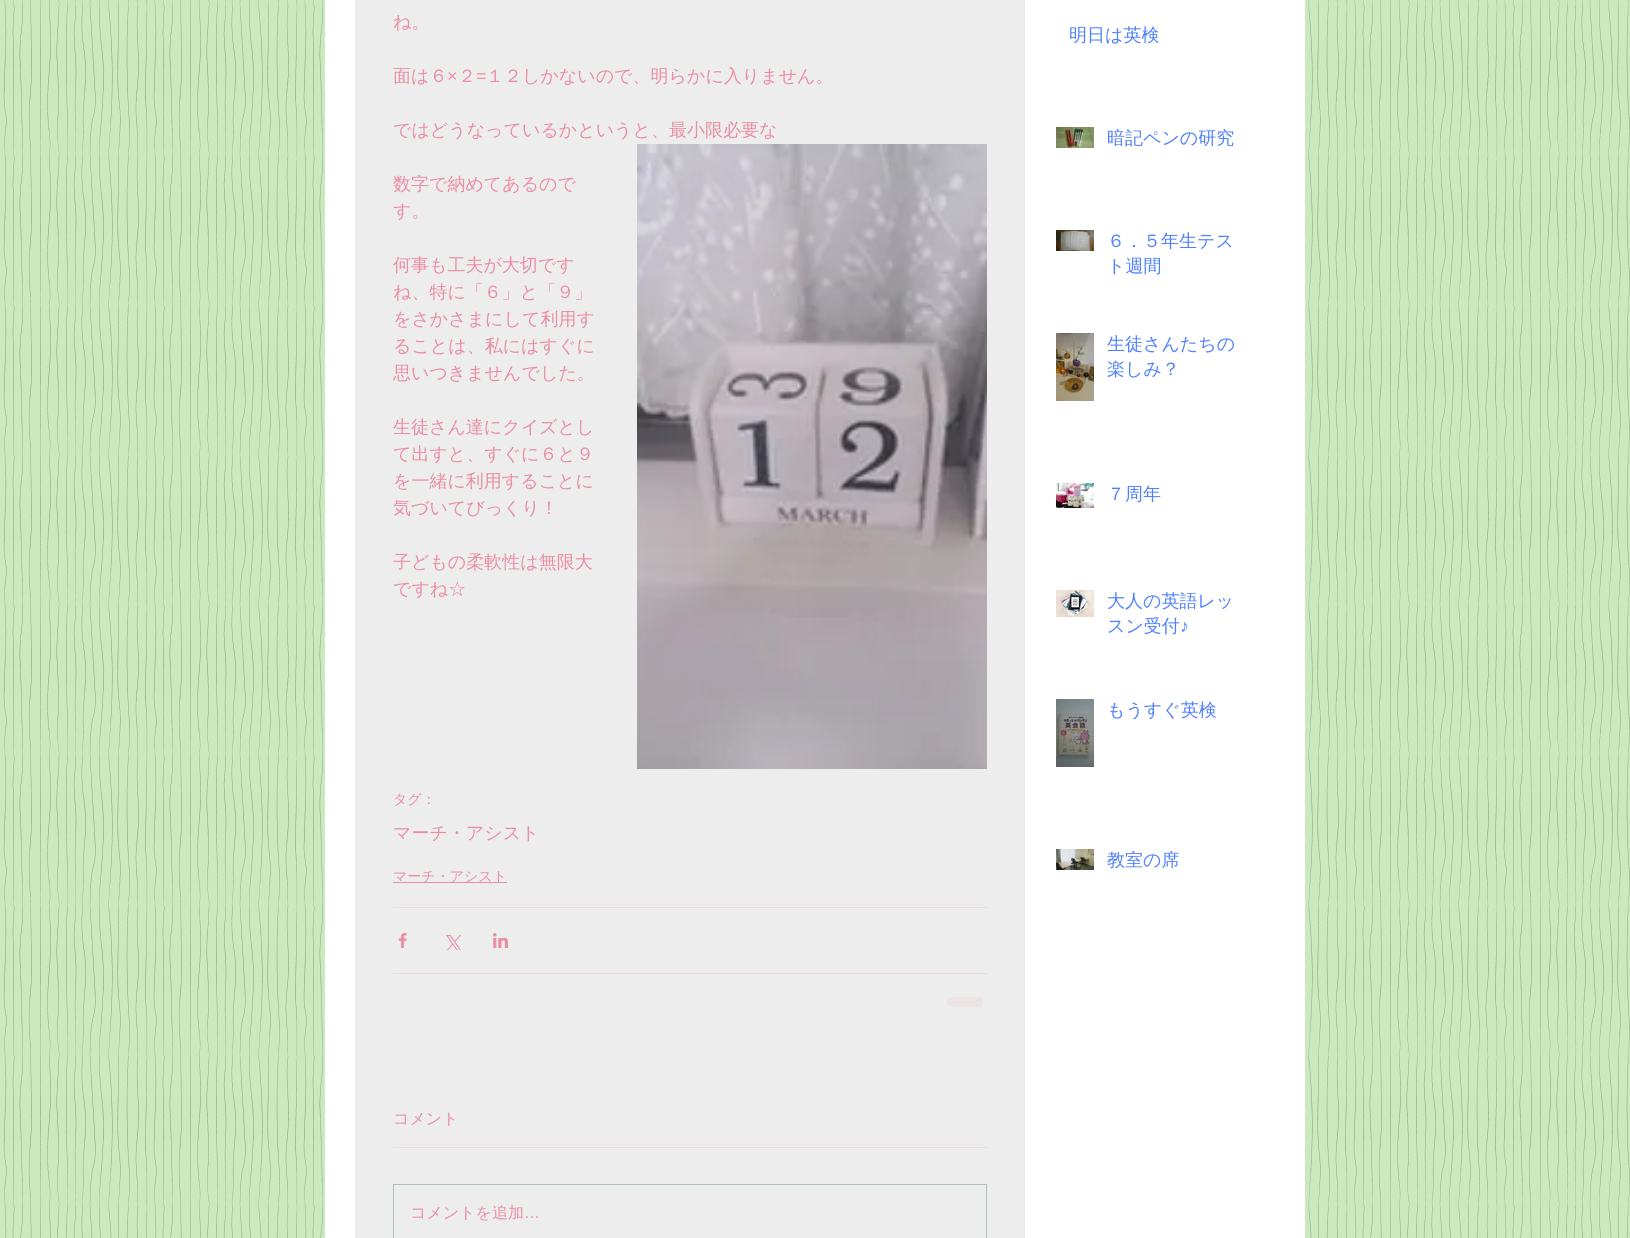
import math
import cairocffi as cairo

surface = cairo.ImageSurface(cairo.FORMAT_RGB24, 1630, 1238)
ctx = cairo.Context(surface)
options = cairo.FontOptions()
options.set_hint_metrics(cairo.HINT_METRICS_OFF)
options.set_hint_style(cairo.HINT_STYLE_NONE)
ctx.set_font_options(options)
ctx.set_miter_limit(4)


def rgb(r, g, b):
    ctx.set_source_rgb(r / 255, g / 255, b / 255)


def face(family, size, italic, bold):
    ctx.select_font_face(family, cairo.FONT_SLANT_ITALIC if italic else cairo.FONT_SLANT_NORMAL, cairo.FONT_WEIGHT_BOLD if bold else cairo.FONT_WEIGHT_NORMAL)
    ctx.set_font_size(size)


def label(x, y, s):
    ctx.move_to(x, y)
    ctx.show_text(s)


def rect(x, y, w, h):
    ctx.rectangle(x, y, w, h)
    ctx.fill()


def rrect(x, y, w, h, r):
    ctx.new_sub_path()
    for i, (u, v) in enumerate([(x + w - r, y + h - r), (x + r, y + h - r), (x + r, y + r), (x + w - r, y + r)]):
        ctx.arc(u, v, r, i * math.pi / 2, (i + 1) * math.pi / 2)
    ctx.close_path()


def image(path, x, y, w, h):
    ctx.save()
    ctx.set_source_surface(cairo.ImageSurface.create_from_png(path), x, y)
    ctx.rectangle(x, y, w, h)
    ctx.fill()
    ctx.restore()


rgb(202, 233, 189)
ctx.paint()
image('image0.png', 3, 0, 1627, 1238)
rgb(255, 255, 255)
rect(325, 0, 980, 1238)
rgb(237, 237, 237)
rect(355, 0, 670, 1238)
face('WenQuanYi Zen Hei Medium', 18, 0, 0)
rgb(235, 142, 164)
label(393, 28, 'ね。')
label(393, 82, '面は６')
face('Liberation Sans', 18, 0, 0)
label(447, 82, '×')
face('WenQuanYi Zen Hei Medium', 18, 0, 0)
label(458, 82, '２')
face('Liberation Sans', 18, 0, 0)
label(476, 82, '=')
face('WenQuanYi Zen Hei Medium', 18, 0, 0)
label(486, 82, '１２しかないので、明らかに入りません。')
label(393, 136, 'ではどうなっているかというと、最小限必要な')
label(393, 190, '数字で納めてあるので')
label(393, 217, 'す。')
label(393, 271, '何事も工夫が大切です')
label(393, 298, 'ね、特に「６」と「９」')
label(393, 325, 'をさかさまにして利用す')
label(393, 352, 'ることは、私にはすぐに')
label(393, 379, '思いつきませんでした。')
label(393, 433, '生徒さん達にクイズとし')
label(393, 460, 'て出すと、すぐに６と９')
label(393, 487, 'を一緒に利用することに')
label(393, 514, '気づいてびっくり！')
label(393, 568, '子どもの柔軟性は無限大')
label(393, 595, 'ですね☆')
image('image1.png', 637, 144, 350, 625)
face('WenQuanYi Zen Hei Medium', 14, 0, 0)
label(393, 804, 'タグ：')
face('WenQuanYi Zen Hei Medium', 18, 0, 0)
label(393, 839, 'マーチ・アシスト')
rect(393, 882, 114, 1)
face('WenQuanYi Zen Hei Medium', 14, 0, 0)
label(393, 881, 'マーチ・アシスト')
rgb(237, 218, 222)
rect(393, 907, 594, 1)
image('image2.png', 398, 933, 9, 15)
image('image3.png', 446, 935, 15, 15)
image('image4.png', 493, 933, 15, 15)
rect(393, 973, 594, 1)
rgb(237, 226, 228)
rrect(947, 997, 36, 10, 5)
ctx.fill()
face('WenQuanYi Zen Hei Medium', 16, 0, 0)
rgb(235, 142, 164)
label(393, 1124, 'コメント')
rgb(237, 218, 222)
rect(393, 1147, 594, 1)
ctx.rectangle(393.5, 1184.5, 593, 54)
rgb(174, 191, 183)
ctx.set_line_width(1)
ctx.stroke()
rgb(235, 142, 164)
label(410, 1218, 'コメントを追加')
face('Liberation Sans', 16, 0, 0)
label(524, 1218, '…')
face('WenQuanYi Zen Hei Medium', 18, 0, 0)
rgb(78, 127, 255)
label(1069, 41, '明日は英検')
image('image5.png', 1056, 127, 38, 21)
label(1107, 144, '暗記ペンの研究')
image('image6.png', 1056, 230, 38, 21)
label(1107, 247, '６．５年生テス')
label(1107, 272, 'ト週間')
image('image7.png', 1056, 333, 38, 68)
label(1107, 350, '生徒さんたちの')
label(1107, 375, '楽しみ？')
image('image8.png', 1056, 483, 38, 25)
label(1107, 500, '７周年')
image('image9.png', 1056, 590, 38, 27)
label(1107, 607, '大人の英語レッ')
label(1107, 632, 'スン受付')
face('Liberation Sans', 18, 0, 0)
label(1180, 632, '♪')
image('image10.png', 1056, 699, 38, 68)
face('WenQuanYi Zen Hei Medium', 18, 0, 0)
label(1107, 716, 'もうすぐ英検')
image('image11.png', 1056, 849, 38, 21)
label(1107, 866, '教室の席')
surface.write_to_png('render.png')
